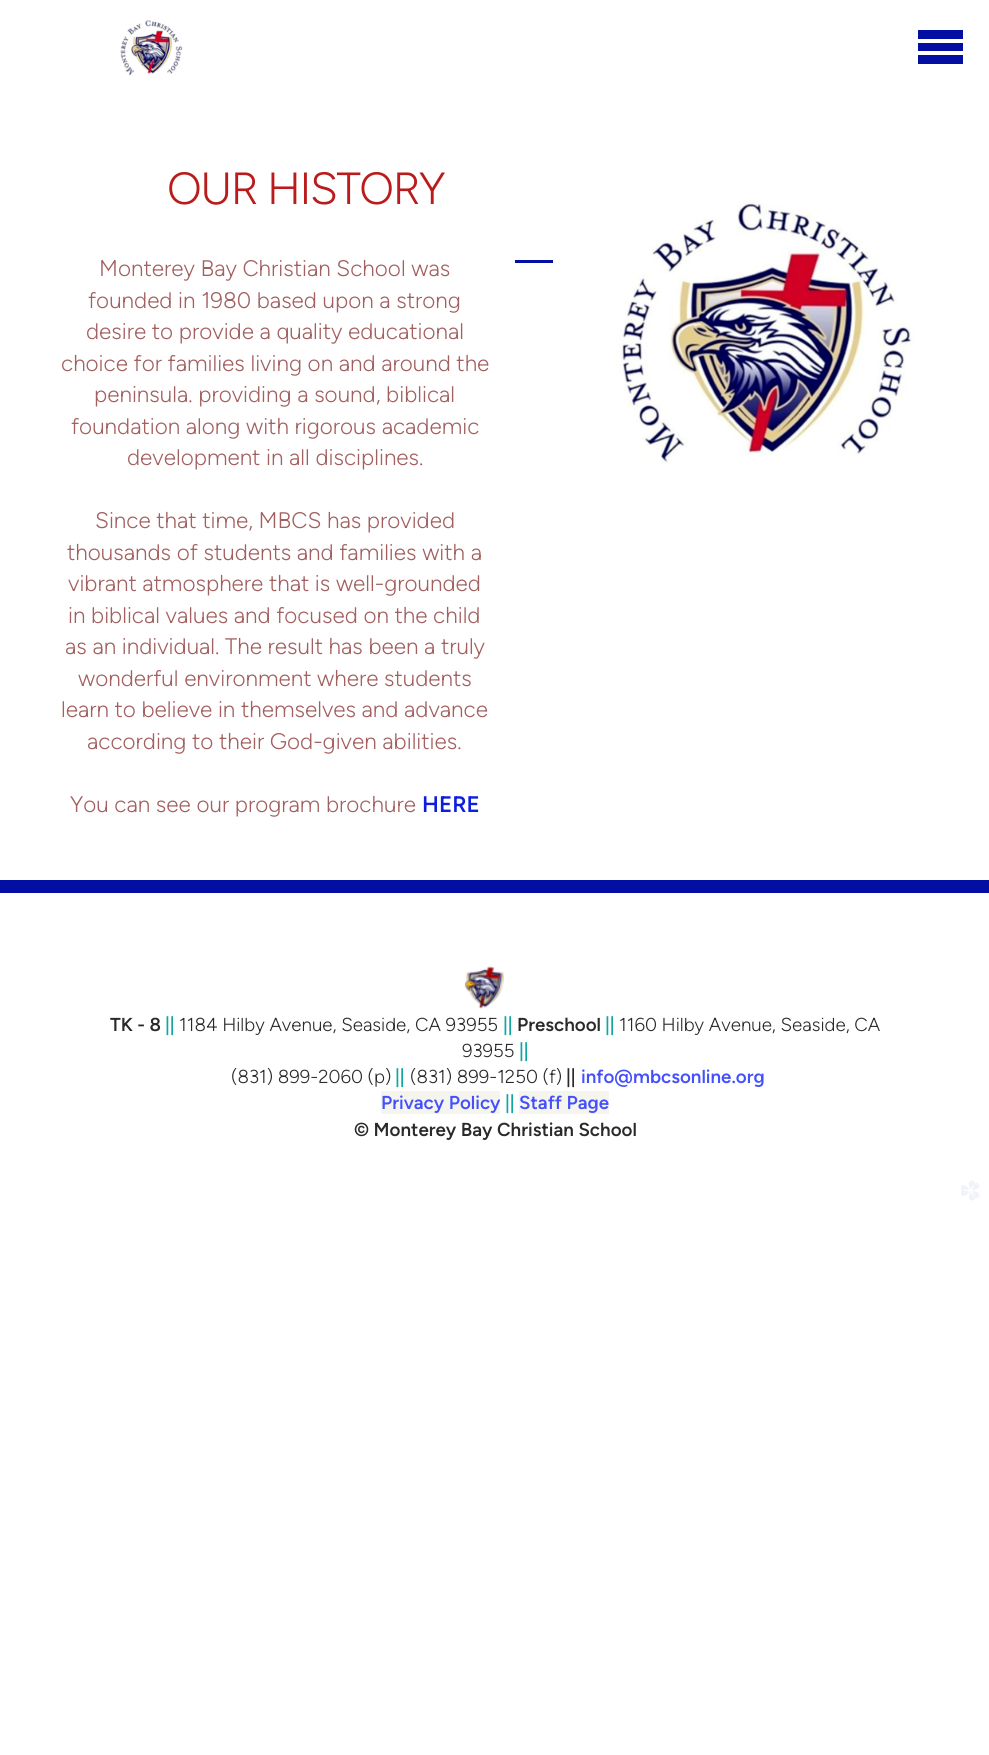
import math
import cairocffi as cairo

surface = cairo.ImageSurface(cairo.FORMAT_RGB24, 989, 1755)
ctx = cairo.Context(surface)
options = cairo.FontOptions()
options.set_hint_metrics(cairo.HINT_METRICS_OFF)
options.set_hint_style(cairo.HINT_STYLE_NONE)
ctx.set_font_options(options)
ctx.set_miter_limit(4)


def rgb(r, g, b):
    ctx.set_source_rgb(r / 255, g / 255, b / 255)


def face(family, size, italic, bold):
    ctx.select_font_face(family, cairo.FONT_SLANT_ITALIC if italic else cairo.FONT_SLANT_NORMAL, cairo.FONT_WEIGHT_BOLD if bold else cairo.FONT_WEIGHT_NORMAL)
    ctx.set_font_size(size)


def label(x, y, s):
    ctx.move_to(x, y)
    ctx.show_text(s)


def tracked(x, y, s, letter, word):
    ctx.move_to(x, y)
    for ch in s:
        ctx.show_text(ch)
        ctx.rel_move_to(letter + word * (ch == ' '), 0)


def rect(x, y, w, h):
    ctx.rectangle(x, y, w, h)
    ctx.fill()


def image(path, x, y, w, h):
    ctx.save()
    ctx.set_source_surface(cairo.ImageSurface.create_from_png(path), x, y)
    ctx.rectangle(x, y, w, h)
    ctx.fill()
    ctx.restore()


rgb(255, 255, 255)
ctx.paint()
image('image0.png', 120, 20, 63, 56)
rgb(3, 14, 163)
rect(918, 30, 45, 9)
rect(918, 43, 45, 8)
rect(918, 55, 45, 9)
face('Figtree Light', 45, 0, 0)
rgb(186, 28, 28)
tracked(167, 204, 'OUR HISTORY', -1.4, 0)
face('Figtree Light', 22.5, 0, 0)
rgb(163, 96, 96)
label(99, 276, 'Monterey Bay Christian School was')
label(88, 308, 'founded in 1980 based upon a strong')
label(86, 339, 'desire to provide a quality educational')
label(61, 371, 'choice for families living on and around the')
label(94, 402, 'peninsula. providing a sound, biblical')
label(71, 434, 'foundation along with rigorous academic')
label(127, 465, 'development in all disciplines.')
label(95, 528, 'Since that time, MBCS has provided')
label(67, 560, 'thousands of students and families with a')
label(68, 591, 'vibrant atmosphere that is well-grounded')
label(68, 623, 'in biblical values and focused on the child')
label(65, 654, 'as an individual. The result has been a truly')
label(78, 686, 'wonderful environment where students')
label(61, 717, 'learn to believe in themselves and advance')
label(87, 749, 'according to their God-given abilities.')
label(70, 812, 'You can see our program brochure')
face('Figtree SemiBold', 22.5, 0, 0)
rgb(13, 30, 222)
label(422, 812, 'HERE')
rgb(3, 14, 163)
rect(515, 260, 38, 3)
image('image1.png', 615, 201, 299, 263)
rect(0, 880, 989, 13)
image('image2.png', 464, 966, 40, 43)
face('Figtree SemiBold', 18.75, 0, 0)
rgb(42, 42, 42)
label(110, 1031, 'TK - 8')
rgb(16, 166, 161)
label(165, 1031, '||')
face('Figtree Light', 18.75, 0, 0)
rgb(42, 42, 42)
label(179, 1031, '1184 Hilby Avenue, Seaside, CA 93955')
face('Figtree SemiBold', 18.75, 0, 0)
rgb(16, 166, 161)
label(503, 1031, '||')
rgb(42, 42, 42)
label(517, 1031, 'Preschool')
rgb(16, 166, 161)
label(605, 1031, '||')
face('Figtree Light', 18.75, 0, 0)
rgb(42, 42, 42)
label(619, 1031, '1160 Hilby Avenue, Seaside, CA')
label(462, 1057, '93955')
face('Figtree SemiBold', 18.75, 0, 0)
rgb(16, 166, 161)
label(519, 1057, '||')
face('Figtree Light', 18.75, 0, 0)
rgb(42, 42, 42)
label(231, 1083, '(831) 899-2060 (p)')
face('Figtree SemiBold', 18.75, 0, 0)
rgb(16, 166, 161)
label(395, 1083, '||')
face('Figtree Light', 18.75, 0, 0)
rgb(42, 42, 42)
label(410, 1083, '(831) 899-1250 (f)')
face('Figtree SemiBold', 18.75, 0, 0)
label(566, 1083, '||')
rgb(67, 80, 252)
label(581, 1083, 'info@mbcsonline.org')
rgb(245, 245, 237)
rect(381, 1091, 119, 23)
rgb(67, 80, 252)
label(381, 1109, 'Privacy Policy')
rgb(16, 166, 161)
label(505, 1109, '||')
rgb(245, 245, 237)
rect(519, 1091, 90, 23)
rgb(67, 80, 252)
label(519, 1109, 'Staff Page')
rgb(42, 42, 42)
label(354, 1136, '© Monterey Bay Christian School')
image('image3.png', 961, 1180, 19, 21)
surface.write_to_png('render.png')
